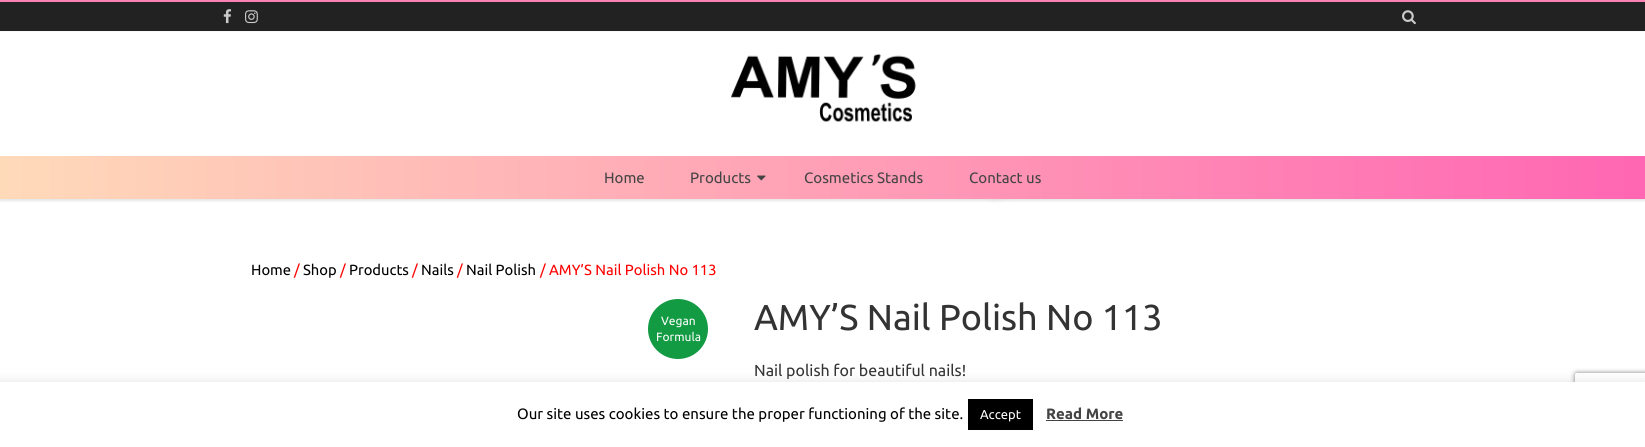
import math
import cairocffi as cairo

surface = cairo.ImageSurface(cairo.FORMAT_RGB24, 1645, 447)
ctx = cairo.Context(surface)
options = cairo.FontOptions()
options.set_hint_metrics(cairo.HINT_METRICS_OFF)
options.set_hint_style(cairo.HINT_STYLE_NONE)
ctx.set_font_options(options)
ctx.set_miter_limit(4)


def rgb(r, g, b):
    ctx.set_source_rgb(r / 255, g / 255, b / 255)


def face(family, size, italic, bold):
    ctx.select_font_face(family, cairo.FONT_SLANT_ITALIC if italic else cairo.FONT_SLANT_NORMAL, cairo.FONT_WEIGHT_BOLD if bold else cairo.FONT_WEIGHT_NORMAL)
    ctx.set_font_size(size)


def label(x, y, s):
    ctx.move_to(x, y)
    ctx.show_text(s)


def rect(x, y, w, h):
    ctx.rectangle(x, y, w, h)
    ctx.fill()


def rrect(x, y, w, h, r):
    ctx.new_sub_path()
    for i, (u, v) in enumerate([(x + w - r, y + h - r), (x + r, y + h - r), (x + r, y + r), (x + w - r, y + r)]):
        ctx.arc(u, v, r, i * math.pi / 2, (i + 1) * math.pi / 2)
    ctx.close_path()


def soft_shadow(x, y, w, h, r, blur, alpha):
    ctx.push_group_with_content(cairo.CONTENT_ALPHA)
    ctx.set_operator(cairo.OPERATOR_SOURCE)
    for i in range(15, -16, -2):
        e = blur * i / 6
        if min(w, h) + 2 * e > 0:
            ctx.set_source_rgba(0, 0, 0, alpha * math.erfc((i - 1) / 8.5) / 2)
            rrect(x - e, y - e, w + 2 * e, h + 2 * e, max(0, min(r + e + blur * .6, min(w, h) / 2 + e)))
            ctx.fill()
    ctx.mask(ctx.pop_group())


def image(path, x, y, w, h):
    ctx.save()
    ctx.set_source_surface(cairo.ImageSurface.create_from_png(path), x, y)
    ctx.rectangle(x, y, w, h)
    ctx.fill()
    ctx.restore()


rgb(255, 255, 255)
ctx.paint()
image('image0.png', 0, 199, 1645, 183)
rgb(128, 128, 128)
soft_shadow(0, 2, 1645, 199, 0, 1, 0.2)
rgb(255, 255, 255)
rect(0, 32, 1645, 124)
rgb(248, 130, 179)
rect(0, 0, 1645, 2)
rgb(34, 34, 34)
rect(0, 2, 1645, 29)
rgb(247, 247, 247)
rect(0, 31, 1645, 1)
image('image1.png', 223, 9, 9, 15)
image('image2.png', 245, 10, 13, 14)
image('image3.png', 1402, 10, 14, 15)
image('image4.png', 730, 53, 186, 69)
gradient = cairo.LinearGradient(0, 178, 1645, 177)
gradient.add_color_stop_rgba(0, 1, 0.855, 0.725, 1)
gradient.add_color_stop_rgba(1, 1, 0.4, 0.702, 1)
ctx.set_source(gradient)
rect(0, 156, 1645, 43)
face('Ubuntu', 15, 0, 0)
rgb(68, 68, 68)
label(604, 183, 'Home')
label(690, 183, 'Products')
image('image5.png', 757, 175, 9, 6)
label(804, 183, 'Cosmetics Stands')
label(969, 183, 'Contact us')
rgb(255, 255, 255)
rect(533, 364, 111, 18)
face('Ubuntu', 14.75, 0, 0)
rgb(0, 0, 0)
label(251, 275, 'Home')
rgb(255, 0, 0)
label(294, 275, '/')
rgb(0, 0, 0)
label(303, 275, 'Shop')
rgb(255, 0, 0)
label(340, 275, '/')
rgb(0, 0, 0)
label(349, 275, 'Products')
rgb(255, 0, 0)
label(412, 275, '/')
rgb(0, 0, 0)
label(421, 275, 'Nails')
rgb(255, 0, 0)
label(457, 275, '/')
rgb(0, 0, 0)
label(466, 275, 'Nail Polish')
rgb(255, 0, 0)
label(540, 275, '/ AMY’S Nail Polish No 113')
rgb(18, 155, 66)
ctx.new_path()
ctx.arc(678, 329, 30, 0, 2 * math.pi)
ctx.fill()
face('Ubuntu', 12, 0, 0)
rgb(255, 255, 255)
label(661, 325, 'Vegan')
label(656, 341, 'Formula')
face('Ubuntu', 36, 0, 0)
rgb(51, 51, 51)
label(754, 330, 'AMY’S Nail Polish No 113')
face('Ubuntu', 16, 0, 0)
label(754, 376, 'Nail polish for beautiful nails!')
rgb(172, 171, 171)
soft_shadow(0, 381, 1645, 65, 0, 5, 0.3)
ctx.save()
ctx.set_fill_rule(cairo.FILL_RULE_EVEN_ODD)
ctx.new_path()
ctx.move_to(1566, 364)
ctx.line_to(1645, 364)
ctx.line_to(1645, 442)
ctx.line_to(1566, 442)
ctx.close_path()
ctx.move_to(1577, 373)
ctx.line_to(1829, 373)
ctx.curve_to(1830, 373, 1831, 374, 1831, 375)
ctx.line_to(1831, 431)
ctx.curve_to(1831, 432, 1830, 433, 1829, 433)
ctx.line_to(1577, 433)
ctx.curve_to(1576, 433, 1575, 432, 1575, 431)
ctx.line_to(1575, 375)
ctx.curve_to(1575, 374, 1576, 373, 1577, 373)
ctx.close_path()
ctx.clip()
rgb(128, 128, 128)
soft_shadow(1575, 373, 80, 60, 2, 2.5, 1)
ctx.restore()
rgb(255, 255, 255)
rect(0, 382, 1645, 65)
face('Ubuntu', 15, 0, 0)
rgb(0, 0, 0)
label(517, 419, 'Our site uses cookies to ensure the proper functioning of the site.')
rect(968, 399, 65, 31)
face('Ubuntu', 13, 0, 0)
rgb(255, 255, 255)
label(980, 419, 'Accept')
face('Ubuntu', 15, 0, 1)
rgb(68, 68, 68)
label(1046, 419, 'Read More')
rect(1046, 420, 77, 1)
surface.write_to_png('render.png')
